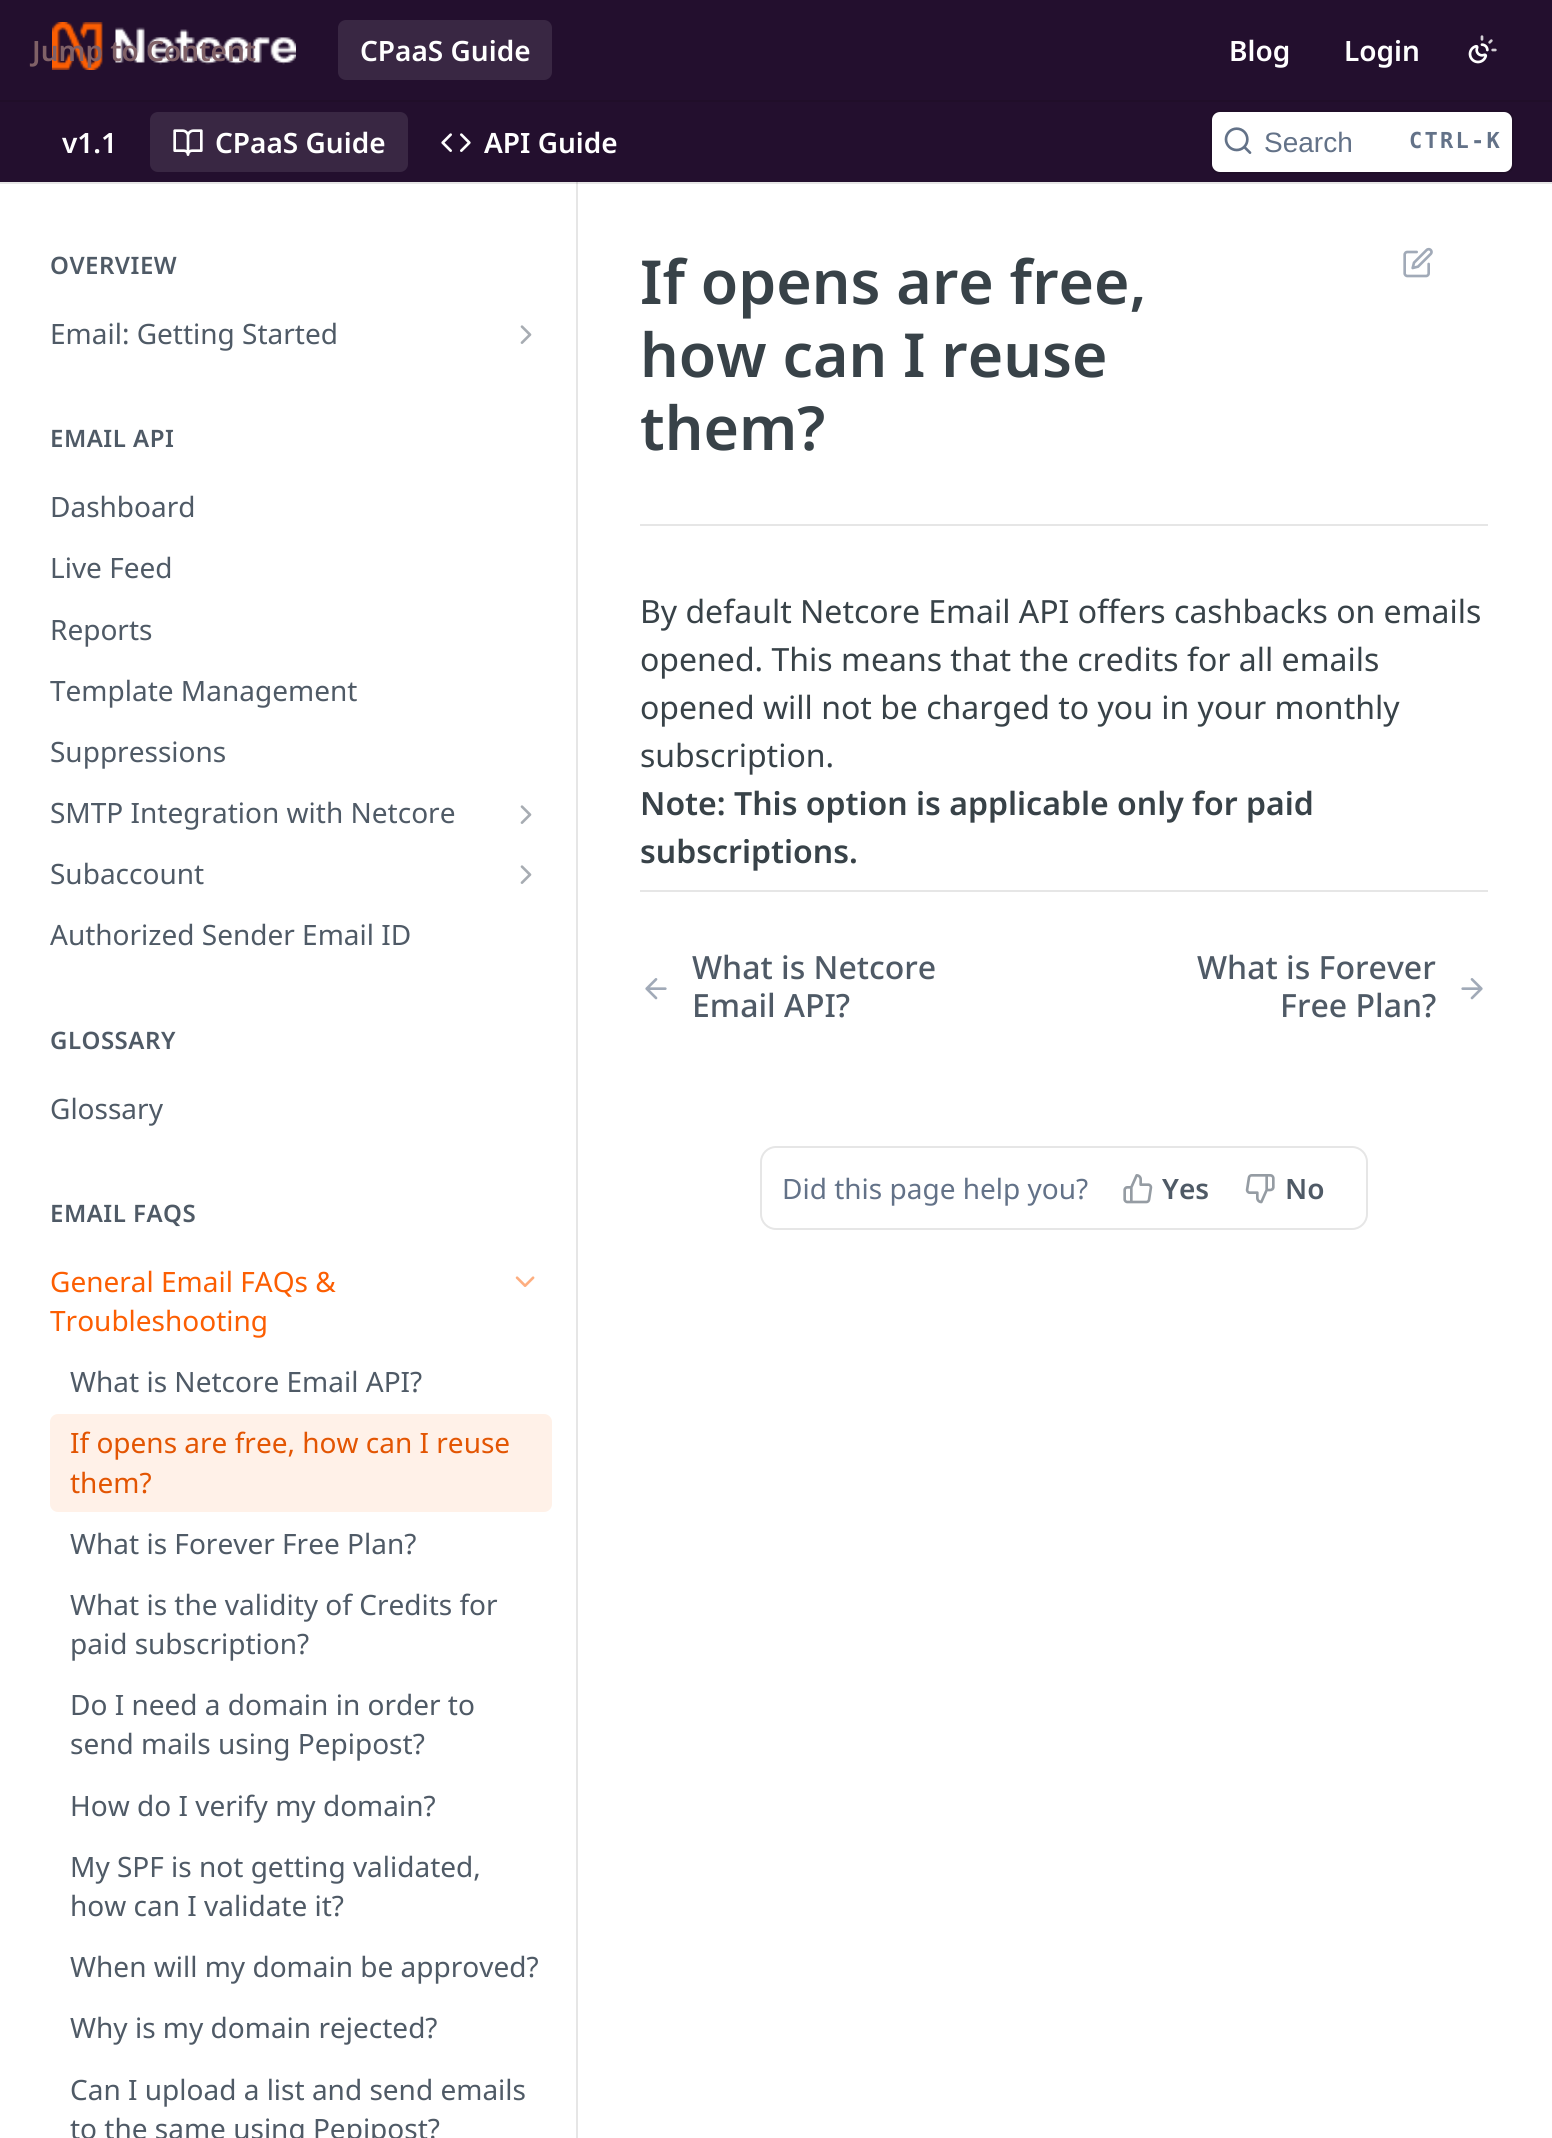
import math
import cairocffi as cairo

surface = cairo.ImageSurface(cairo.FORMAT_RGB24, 1552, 2138)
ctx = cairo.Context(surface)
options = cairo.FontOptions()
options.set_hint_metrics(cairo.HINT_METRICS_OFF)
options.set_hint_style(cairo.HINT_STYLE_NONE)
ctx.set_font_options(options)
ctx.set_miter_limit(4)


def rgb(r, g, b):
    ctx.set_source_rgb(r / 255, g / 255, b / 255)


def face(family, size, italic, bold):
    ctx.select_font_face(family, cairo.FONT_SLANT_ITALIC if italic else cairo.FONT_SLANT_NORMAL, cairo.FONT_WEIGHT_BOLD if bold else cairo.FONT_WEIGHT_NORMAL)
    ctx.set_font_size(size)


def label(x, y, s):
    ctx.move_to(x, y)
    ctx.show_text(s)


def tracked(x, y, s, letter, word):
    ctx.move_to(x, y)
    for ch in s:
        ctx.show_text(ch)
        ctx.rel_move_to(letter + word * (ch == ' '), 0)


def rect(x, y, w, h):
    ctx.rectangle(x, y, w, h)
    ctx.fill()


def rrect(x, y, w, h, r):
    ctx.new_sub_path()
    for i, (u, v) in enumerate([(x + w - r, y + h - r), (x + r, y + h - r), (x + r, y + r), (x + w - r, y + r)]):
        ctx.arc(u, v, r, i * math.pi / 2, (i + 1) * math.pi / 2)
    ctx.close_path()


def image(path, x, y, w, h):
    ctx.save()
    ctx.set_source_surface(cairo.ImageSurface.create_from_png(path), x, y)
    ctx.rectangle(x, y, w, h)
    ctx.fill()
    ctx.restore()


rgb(255, 255, 255)
ctx.paint()
rgb(230, 230, 230)
rect(0, 182, 1552, 2)
rgb(35, 15, 46)
rect(0, 0, 1552, 182)
rgb(32, 14, 41)
rect(0, 100, 1552, 2)
image('image0.png', 52, 22, 244, 48)
face('Noto Sans SemiBold', 28, 0, 0)
rgb(128, 97, 103)
label(32, 61, 'Jump to Content')
rgb(57, 39, 67)
rrect(338, 20, 214, 60, 8)
ctx.fill()
rgb(255, 255, 255)
label(360, 61, 'CPaaS Guide')
label(1229, 61, 'Blog')
label(1344, 61, 'Login')
image('image1.png', 1468, 35, 29, 29)
label(62, 153, 'v1.1')
rgb(57, 39, 67)
rrect(150, 112, 258, 60, 8)
ctx.fill()
image('image2.png', 173, 129, 30, 27)
rgb(255, 255, 255)
label(215, 153, 'CPaaS Guide')
image('image3.png', 441, 133, 30, 19)
label(484, 153, 'API Guide')
rrect(1211, 111, 302, 62, 9)
rgb(32, 14, 41)
ctx.stroke()
rgb(255, 255, 255)
rrect(1212, 112, 300, 60, 8)
ctx.fill()
image('image4.png', 1224, 127, 28, 27)
face('Liberation Sans', 28, 0, 0)
rgb(99, 114, 136)
label(1264, 152, 'Search')
face('DejaVu Sans Mono', 22, 0, 1)
tracked(1409, 148, 'CTRL-K', 2.25, 0)
rgb(230, 230, 230)
rect(576, 182, 2, 1956)
rgb(207, 207, 207)
rect(576, 182, 2, 2)
face('Noto Sans SemiBold', 24, 0, 0)
rgb(79, 90, 102)
tracked(50, 274, 'OVERVIEW', 0.5, 0)
face('Noto Sans', 28, 0, 0)
label(50, 344, 'Email: Getting Started')
image('image5.png', 520, 325, 12, 19)
face('Noto Sans SemiBold', 24, 0, 0)
tracked(50, 447, 'EMAIL API', 0.5, 0)
face('Noto Sans', 28, 0, 0)
label(50, 517, 'Dashboard')
label(50, 578, 'Live Feed')
label(50, 640, 'Reports')
label(50, 701, 'Template Management')
label(50, 762, 'Suppressions')
label(50, 823, 'SMTP Integration with Netcore')
image('image5.png', 520, 805, 12, 19)
label(50, 884, 'Subaccount')
image('image5.png', 520, 865, 12, 19)
label(50, 945, 'Authorized Sender Email ID')
face('Noto Sans SemiBold', 24, 0, 0)
tracked(50, 1049, 'GLOSSARY', 0.5, 0)
face('Noto Sans', 28, 0, 0)
label(50, 1119, 'Glossary')
face('Noto Sans SemiBold', 24, 0, 0)
tracked(50, 1222, 'EMAIL FAQS', 0.5, 0)
face('Noto Sans', 28, 0, 0)
rgb(252, 94, 2)
label(50, 1292, 'General Email FAQs &')
label(50, 1331, 'Troubleshooting')
image('image6.png', 515, 1276, 20, 11)
rgb(79, 90, 102)
label(70, 1392, 'What is Netcore Email API?')
rgb(255, 241, 232)
rrect(50, 1414, 502, 98, 8)
ctx.fill()
rgb(227, 85, 2)
label(70, 1453, 'If opens are free, how can I reuse')
label(70, 1493, 'them?')
rgb(79, 90, 102)
label(70, 1554, 'What is Forever Free Plan?')
label(70, 1615, 'What is the validity of Credits for')
label(70, 1654, 'paid subscription?')
label(70, 1715, 'Do I need a domain in order to')
label(70, 1754, 'send mails using Pepipost?')
label(70, 1816, 'How do I verify my domain?')
label(70, 1877, 'My SPF is not getting validated,')
label(70, 1916, 'how can I validate it?')
label(70, 1977, 'When will my domain be approved?')
label(70, 2038, 'Why is my domain rejected?')
label(70, 2100, 'Can I upload a list and send emails')
label(70, 2139, 'to the same using Pepipost?')
rgb(230, 230, 230)
rect(640, 524, 848, 2)
face('Noto Sans SemiBold', 60.75, 0, 0)
rgb(56, 66, 72)
label(640, 304, 'If opens are free,')
label(640, 377, 'how can I reuse')
label(640, 450, 'them?')
image('image7.png', 1403, 247, 30, 31)
face('Noto Sans', 32, 0, 0)
label(640, 623, 'By default Netcore Email API offers cashbacks on emails')
label(640, 671, 'opened. This means that the credits for all emails')
label(640, 719, 'opened will not be charged to you in your monthly')
label(640, 767, 'subscription.')
face('Noto Sans SemiBold', 32, 0, 0)
label(640, 815, 'Note: This option is applicable only for paid')
label(640, 863, 'subscriptions.')
rgb(230, 230, 230)
rect(640, 890, 848, 2)
image('image8.png', 645, 978, 22, 22)
face('Noto Sans Medium', 32, 0, 0)
rgb(79, 90, 102)
label(692, 979, 'What is Netcore')
label(692, 1017, 'Email API?')
label(1197, 979, 'What is Forever')
label(1280, 1017, 'Free Plan?')
image('image9.png', 1461, 978, 22, 22)
rrect(761, 1147, 606, 82, 15)
rgb(230, 230, 230)
ctx.stroke()
face('Noto Sans', 28, 0, 0)
rgb(99, 114, 136)
label(782, 1199, 'Did this page help you?')
image('image10.png', 1123, 1174, 30, 30)
face('Noto Sans SemiBold', 28, 0, 0)
rgb(79, 90, 102)
label(1162, 1199, 'Yes')
image('image11.png', 1245, 1174, 30, 30)
label(1285, 1199, 'No')
surface.write_to_png('render.png')
